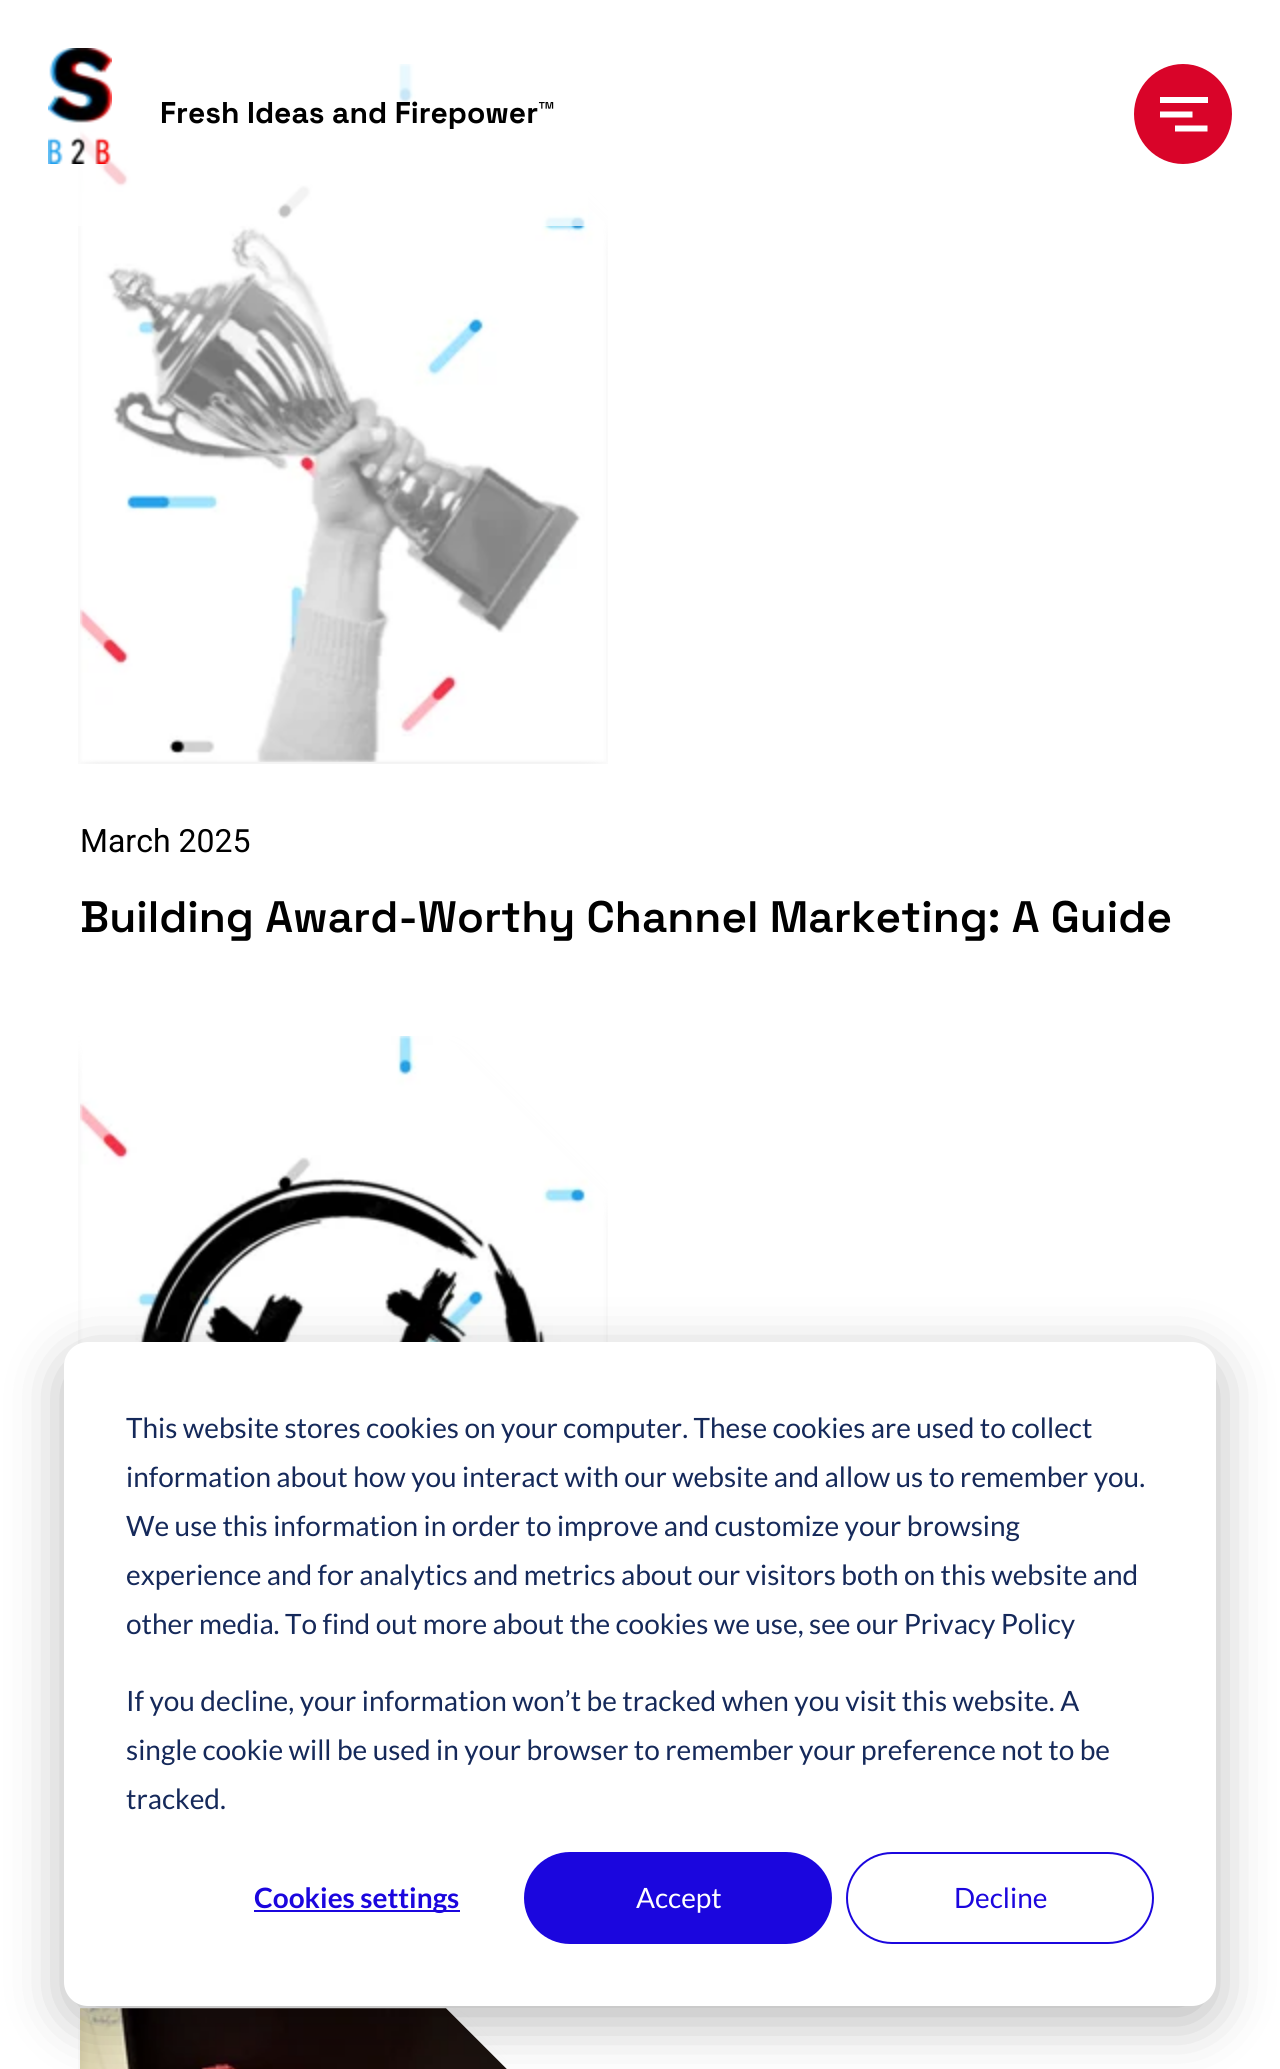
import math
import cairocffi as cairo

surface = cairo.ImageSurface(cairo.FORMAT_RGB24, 1280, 2069)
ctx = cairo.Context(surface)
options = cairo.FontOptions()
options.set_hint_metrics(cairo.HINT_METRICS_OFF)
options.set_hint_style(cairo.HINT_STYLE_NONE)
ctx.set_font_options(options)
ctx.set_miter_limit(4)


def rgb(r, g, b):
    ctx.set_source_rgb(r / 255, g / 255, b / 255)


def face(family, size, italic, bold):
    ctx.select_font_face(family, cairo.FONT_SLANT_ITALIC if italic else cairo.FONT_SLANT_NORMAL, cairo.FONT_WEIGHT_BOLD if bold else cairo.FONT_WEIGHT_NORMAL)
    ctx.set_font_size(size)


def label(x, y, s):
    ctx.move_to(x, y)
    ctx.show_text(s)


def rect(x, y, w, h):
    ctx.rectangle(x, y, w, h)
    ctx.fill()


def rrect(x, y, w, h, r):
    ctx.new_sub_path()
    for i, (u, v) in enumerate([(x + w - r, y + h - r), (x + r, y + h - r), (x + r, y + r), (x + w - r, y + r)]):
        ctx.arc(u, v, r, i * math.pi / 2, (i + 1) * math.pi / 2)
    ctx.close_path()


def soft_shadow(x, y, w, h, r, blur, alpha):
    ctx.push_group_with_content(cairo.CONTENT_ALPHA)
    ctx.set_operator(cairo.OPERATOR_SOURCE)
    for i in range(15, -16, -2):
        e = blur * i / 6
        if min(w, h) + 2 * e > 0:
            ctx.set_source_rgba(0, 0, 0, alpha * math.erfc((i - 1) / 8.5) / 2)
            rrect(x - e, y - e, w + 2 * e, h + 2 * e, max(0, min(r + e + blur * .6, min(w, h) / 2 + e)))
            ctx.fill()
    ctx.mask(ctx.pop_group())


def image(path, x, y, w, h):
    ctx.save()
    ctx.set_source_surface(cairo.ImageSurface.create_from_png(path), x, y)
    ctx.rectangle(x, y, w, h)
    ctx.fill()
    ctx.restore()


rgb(255, 255, 255)
ctx.paint()
image('image1.png', 78, 64, 530, 700)
ctx.set_source_rgba(1, 1, 1, 0.75)
rect(78, 64, 510, 162)
image('image0.png', 48, 48, 64, 116)
face('Space Grotesk', 30, 0, 1)
rgb(0, 0, 0)
label(160, 123, 'Fresh Ideas and Firepower™')
rgb(217, 4, 41)
ctx.new_path()
ctx.move_to(1183, 64)
ctx.curve_to(1210, 64, 1232, 86.5, 1232, 114)
ctx.curve_to(1232, 141.5, 1210, 164, 1183, 164)
ctx.curve_to(1156, 164, 1134, 141.5, 1134, 114)
ctx.curve_to(1134, 86.5, 1156, 64, 1183, 64)
ctx.close_path()
ctx.fill()
rgb(255, 255, 255)
rect(1160, 97, 48, 6)
ctx.new_path()
ctx.move_to(1160, 114.5)
ctx.line_to(1192.5, 114.5)
ctx.move_to(1175, 128.5)
ctx.line_to(1207.5, 128.5)
ctx.set_line_width(6)
ctx.stroke()
face('Roboto', 32, 0, 0)
rgb(0, 0, 0)
label(80, 852, 'March 2025')
face('Space Grotesk SemiBold', 44, 0, 0)
label(80, 932, 'Building Award-Worthy Channel Marketing: A Guide')
image('image2.png', 78, 1036, 530, 309)
image('image3.png', 78, 2008, 429, 61)
rgb(0, 0, 0)
soft_shadow(64, 1358, 1152, 664, 24, 28, 0.28)
rgb(255, 255, 255)
rrect(64, 1342, 1152, 664, 24)
ctx.fill()
face('Lato', 28, 0, 0)
rgb(21, 41, 90)
label(126, 1438, 'This website stores cookies on your computer. These cookies are used to collect')
label(126, 1487, 'information about how you interact with our website and allow us to remember you.')
label(126, 1536, 'We use this information in order to improve and customize your browsing')
label(126, 1585, 'experience and for analytics and metrics about our visitors both on this website and')
label(126, 1634, 'other media. To find out more about the cookies we use, see our Privacy Policy')
label(126, 1711, 'If you decline, your information won’t be tracked when you visit this website. A')
label(126, 1760, 'single cookie will be used in your browser to remember your preference not to be')
label(126, 1809, 'tracked.')
rgb(27, 6, 222)
rect(254, 1910, 206, 2)
face('Lato', 28, 0, 1)
label(254, 1908, 'Cookies settings')
rrect(525, 1853, 306, 90, 45)
ctx.fill_preserve()
ctx.set_line_width(2)
ctx.stroke()
face('Lato', 28, 0, 0)
rgb(255, 255, 255)
label(636, 1908, 'Accept')
rrect(847, 1853, 306, 90, 45)
rgb(27, 6, 222)
ctx.stroke()
label(954, 1908, 'Decline')
surface.write_to_png('render.png')
